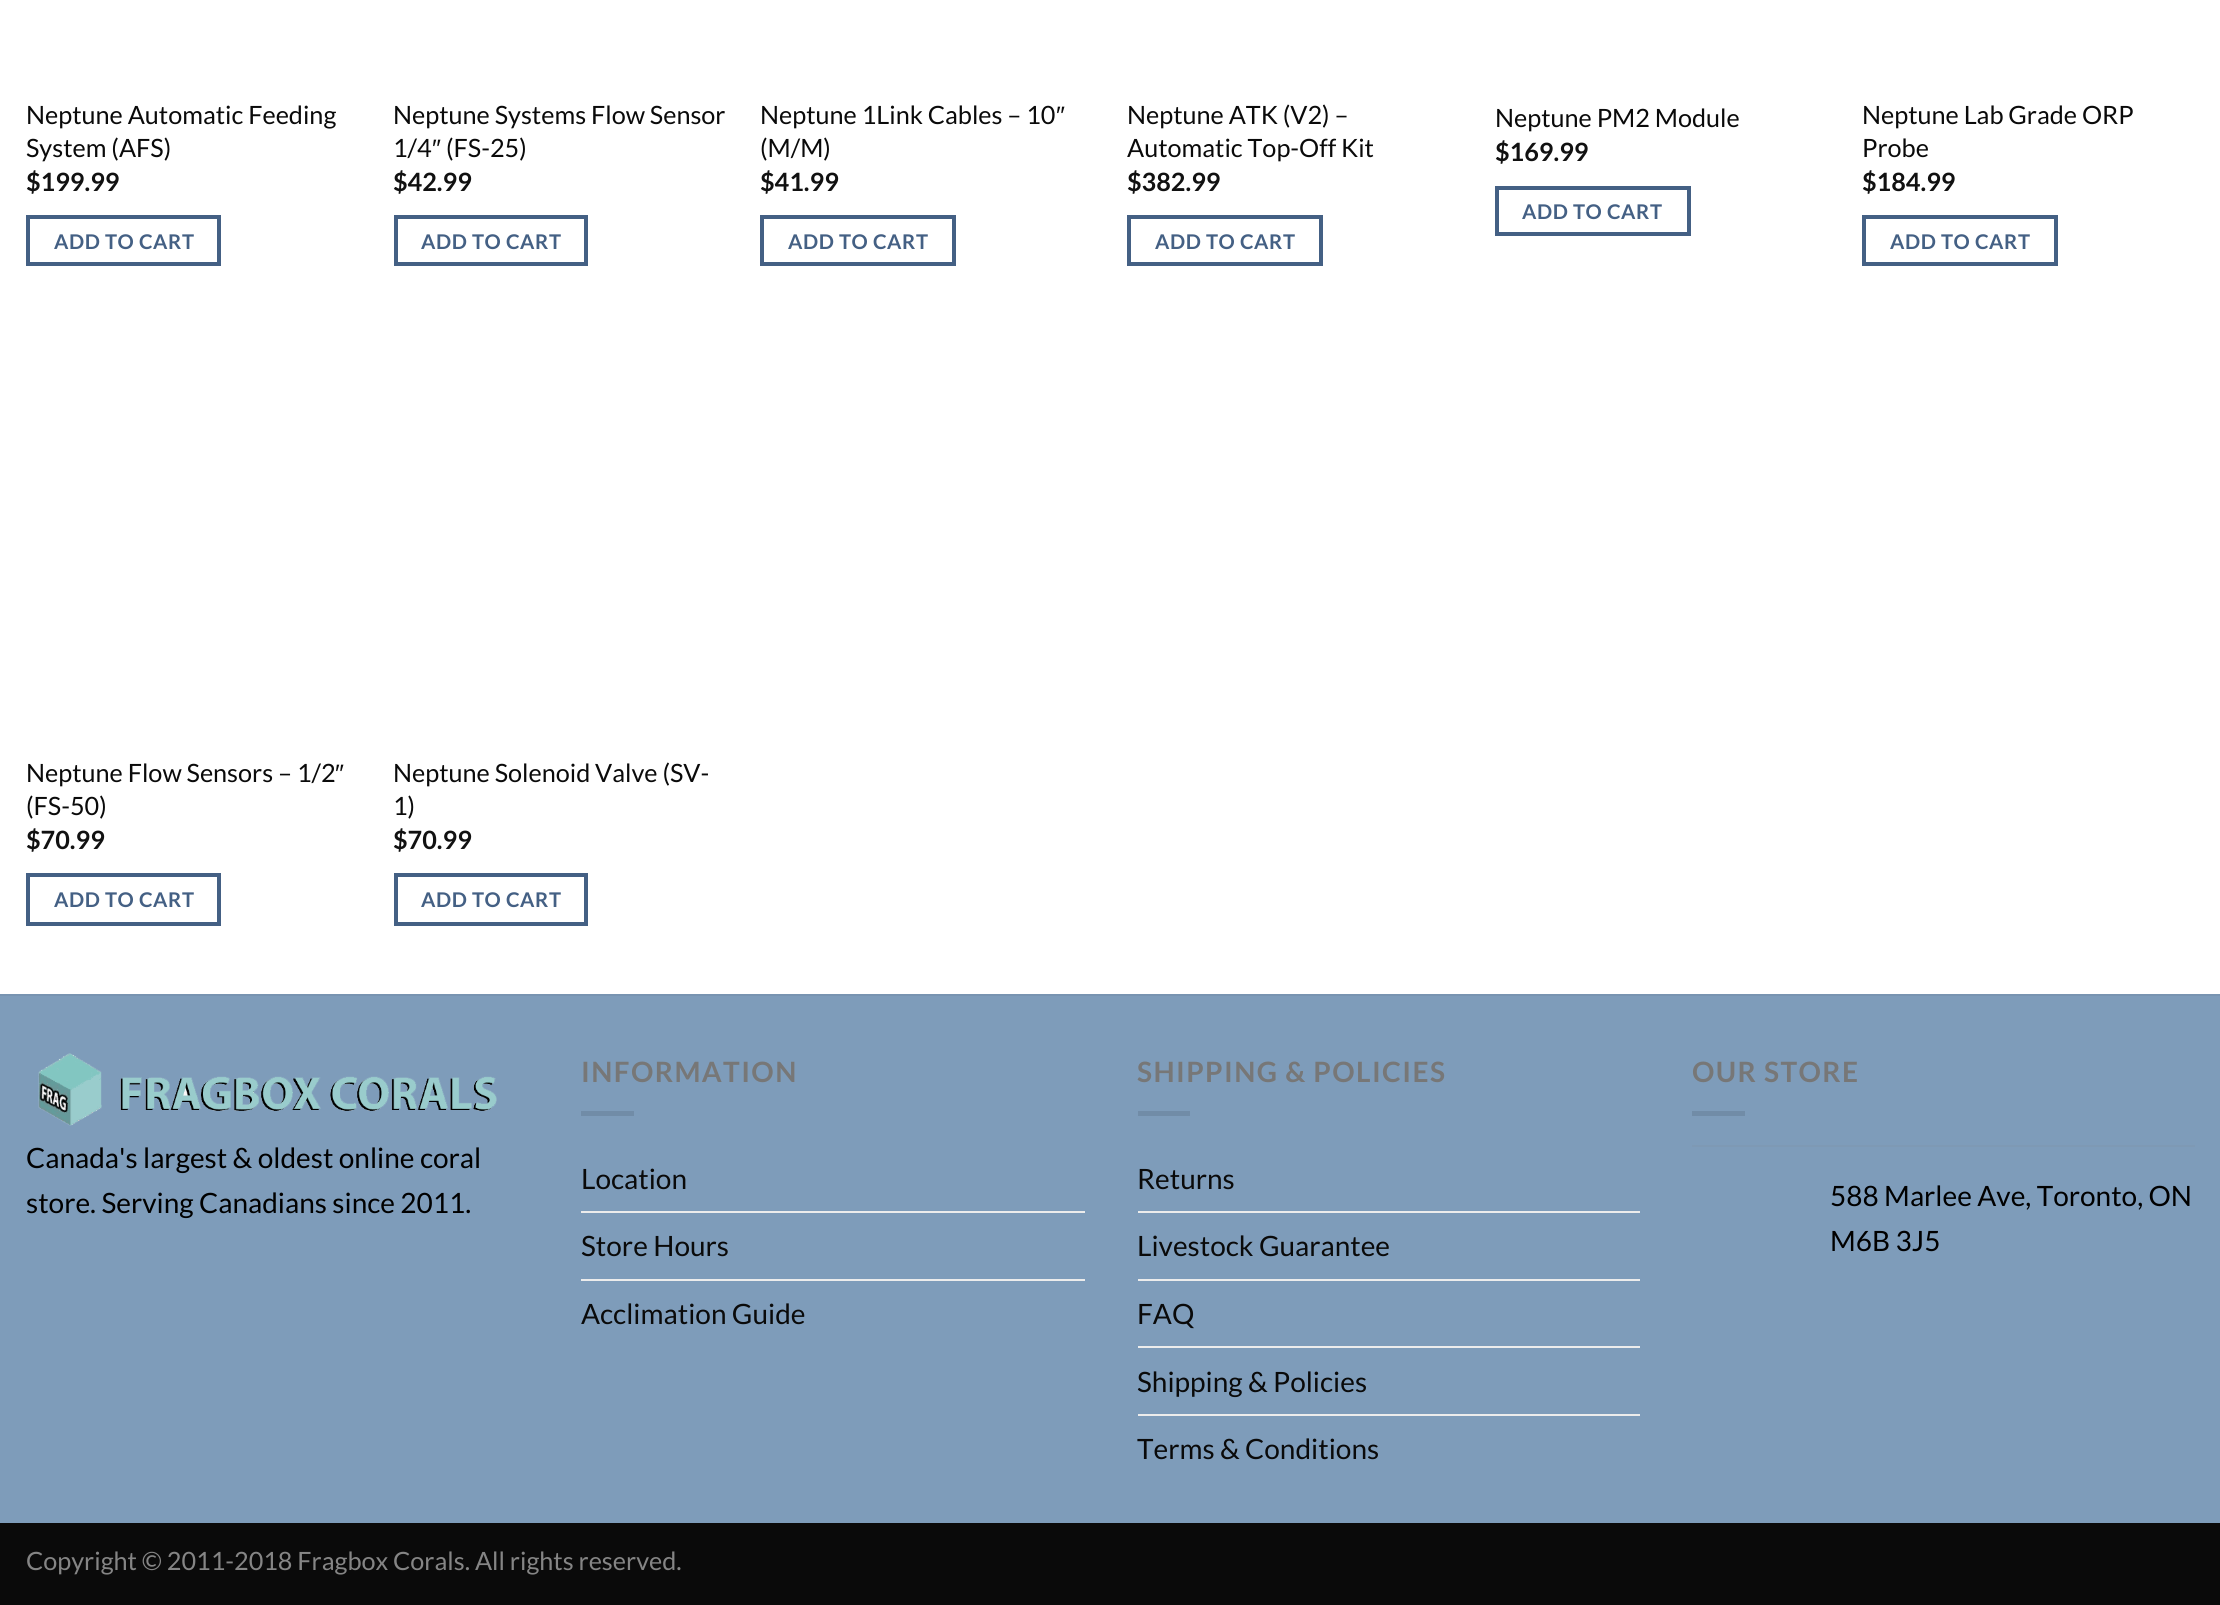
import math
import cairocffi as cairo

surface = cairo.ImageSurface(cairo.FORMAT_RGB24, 2220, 1605)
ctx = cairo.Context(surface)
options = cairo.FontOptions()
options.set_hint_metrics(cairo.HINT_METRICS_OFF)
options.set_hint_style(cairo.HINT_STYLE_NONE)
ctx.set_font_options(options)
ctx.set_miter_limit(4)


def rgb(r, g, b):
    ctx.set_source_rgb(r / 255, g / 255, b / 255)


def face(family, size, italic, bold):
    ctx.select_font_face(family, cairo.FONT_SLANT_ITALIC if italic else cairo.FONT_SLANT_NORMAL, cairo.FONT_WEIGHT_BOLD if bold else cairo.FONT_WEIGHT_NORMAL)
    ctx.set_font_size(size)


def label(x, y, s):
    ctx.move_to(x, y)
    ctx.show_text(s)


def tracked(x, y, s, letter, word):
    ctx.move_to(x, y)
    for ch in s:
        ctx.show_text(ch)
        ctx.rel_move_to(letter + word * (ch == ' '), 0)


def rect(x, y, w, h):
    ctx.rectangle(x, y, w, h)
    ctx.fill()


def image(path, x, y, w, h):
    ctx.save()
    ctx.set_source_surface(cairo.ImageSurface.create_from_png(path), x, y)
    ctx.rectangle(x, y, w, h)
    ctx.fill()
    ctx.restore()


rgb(255, 255, 255)
ctx.paint()
face('Lato', 25.2, 0, 0)
rgb(10, 10, 10)
label(26, 124, 'Neptune Automatic Feeding')
label(26, 157, 'System (AFS)')
face('Lato', 25.2, 0, 1)
rgb(17, 17, 17)
label(26, 191, '$199.99')
ctx.rectangle(28, 217, 191, 47)
rgb(68, 96, 132)
ctx.set_line_width(4)
ctx.stroke()
face('Lato', 20.25, 0, 1)
tracked(54, 249, 'ADD TO CART', 0.6, 0)
face('Lato', 25.2, 0, 0)
rgb(10, 10, 10)
label(393, 124, 'Neptune Systems Flow Sensor')
label(393, 157, '1/4')
face('Liberation Sans', 25.2, 0, 0)
label(432, 157, '″')
face('Lato', 25.2, 0, 0)
label(446, 157, '(FS-25)')
face('Lato', 25.2, 0, 1)
rgb(17, 17, 17)
label(393, 191, '$42.99')
ctx.rectangle(396, 217, 190, 47)
rgb(68, 96, 132)
ctx.stroke()
face('Lato', 20.25, 0, 1)
tracked(421, 249, 'ADD TO CART', 0.6, 0)
face('Lato', 25.2, 0, 0)
rgb(10, 10, 10)
label(760, 124, 'Neptune 1Link Cables – 10')
face('Liberation Sans', 25.2, 0, 0)
label(1056, 124, '″')
face('Lato', 25.2, 0, 0)
label(760, 157, '(M/M)')
face('Lato', 25.2, 0, 1)
rgb(17, 17, 17)
label(760, 191, '$41.99')
ctx.rectangle(762, 217, 192, 47)
rgb(68, 96, 132)
ctx.stroke()
face('Lato', 20.25, 0, 1)
tracked(788, 249, 'ADD TO CART', 0.6, 0)
face('Lato', 25.2, 0, 0)
rgb(10, 10, 10)
label(1127, 124, 'Neptune ATK (V2) –')
label(1127, 157, 'Automatic Top-Off Kit')
face('Lato', 25.2, 0, 1)
rgb(17, 17, 17)
label(1127, 191, '$382.99')
ctx.rectangle(1129, 217, 192, 47)
rgb(68, 96, 132)
ctx.stroke()
face('Lato', 20.25, 0, 1)
tracked(1155, 249, 'ADD TO CART', 0.6, 0)
face('Lato', 25.2, 0, 0)
rgb(10, 10, 10)
label(1495, 127, 'Neptune PM2 Module')
face('Lato', 25.2, 0, 1)
rgb(17, 17, 17)
label(1495, 161, '$169.99')
ctx.rectangle(1497, 188, 192, 46)
rgb(68, 96, 132)
ctx.stroke()
face('Lato', 20.25, 0, 1)
tracked(1522, 219, 'ADD TO CART', 0.6, 0)
face('Lato', 25.2, 0, 0)
rgb(10, 10, 10)
label(1862, 124, 'Neptune Lab Grade ORP')
label(1862, 157, 'Probe')
face('Lato', 25.2, 0, 1)
rgb(17, 17, 17)
label(1862, 191, '$184.99')
ctx.rectangle(1864, 217, 192, 47)
rgb(68, 96, 132)
ctx.stroke()
face('Lato', 20.25, 0, 1)
tracked(1890, 249, 'ADD TO CART', 0.6, 0)
face('Lato', 25.2, 0, 0)
rgb(10, 10, 10)
label(26, 782, 'Neptune Flow Sensors – 1/2')
face('Liberation Sans', 25.2, 0, 0)
label(335, 782, '″')
face('Lato', 25.2, 0, 0)
label(26, 815, '(FS-50)')
face('Lato', 25.2, 0, 1)
rgb(17, 17, 17)
label(26, 849, '$70.99')
ctx.rectangle(28, 875, 191, 49)
rgb(68, 96, 132)
ctx.stroke()
face('Lato', 20.25, 0, 1)
tracked(54, 907, 'ADD TO CART', 0.6, 0)
face('Lato', 25.2, 0, 0)
rgb(10, 10, 10)
label(393, 782, 'Neptune Solenoid Valve (SV-')
label(393, 815, '1)')
face('Lato', 25.2, 0, 1)
rgb(17, 17, 17)
label(393, 849, '$70.99')
ctx.rectangle(396, 875, 190, 49)
rgb(68, 96, 132)
ctx.stroke()
face('Lato', 20.25, 0, 1)
tracked(421, 907, 'ADD TO CART', 0.6, 0)
rgb(126, 156, 186)
rect(0, 996, 2220, 527)
rgb(120, 148, 177)
rect(0, 994, 2220, 2)
image('image0.png', 38, 1053, 459, 73)
face('Lato', 28, 0, 0)
rgb(0, 0, 0)
label(26, 1168, 'Canada\'s largest & oldest online coral')
label(26, 1213, 'store. Serving Canadians since 2011.')
face('Lato', 28, 0, 1)
rgb(119, 119, 119)
tracked(581, 1082, 'INFORMATION', 1.4, 0)
rgb(113, 140, 167)
rect(581, 1111, 53, 5)
face('Lato', 28, 0, 0)
rgb(10, 10, 10)
label(581, 1189, 'Location')
rgb(236, 236, 236)
rect(581, 1211, 504, 2)
rgb(10, 10, 10)
label(581, 1256, 'Store Hours')
rgb(236, 236, 236)
rect(581, 1279, 504, 2)
rgb(10, 10, 10)
label(581, 1324, 'Acclimation Guide')
face('Lato', 28, 0, 1)
rgb(119, 119, 119)
tracked(1137, 1082, 'SHIPPING & POLICIES', 1.4, 0)
rgb(113, 140, 167)
rect(1138, 1111, 52, 5)
face('Lato', 28, 0, 0)
rgb(10, 10, 10)
label(1137, 1189, 'Returns')
rgb(236, 236, 236)
rect(1138, 1211, 502, 2)
rgb(10, 10, 10)
label(1137, 1256, 'Livestock Guarantee')
rgb(236, 236, 236)
rect(1138, 1279, 502, 2)
rgb(10, 10, 10)
label(1137, 1324, 'FAQ')
rgb(236, 236, 236)
rect(1138, 1346, 502, 2)
rgb(10, 10, 10)
label(1137, 1392, 'Shipping & Policies')
rgb(236, 236, 236)
rect(1138, 1414, 502, 2)
rgb(10, 10, 10)
label(1137, 1459, 'Terms & Conditions')
face('Lato', 28, 0, 1)
rgb(119, 119, 119)
tracked(1692, 1082, 'OUR STORE', 1.4, 0)
rgb(113, 140, 167)
rect(1692, 1111, 53, 5)
rgb(126, 153, 180)
rect(1692, 1145, 503, 2)
face('Lato', 28, 0, 0)
rgb(0, 0, 0)
label(1830, 1206, '588 Marlee Ave, Toronto, ON')
label(1830, 1251, 'M6B 3J5')
rgb(10, 10, 10)
rect(0, 1523, 2220, 82)
face('Lato', 25.2, 0, 0)
rgb(133, 133, 133)
label(26, 1570, 'Copyright © 2011-2018 Fragbox Corals. All rights reserved.')
surface.write_to_png('render.png')
